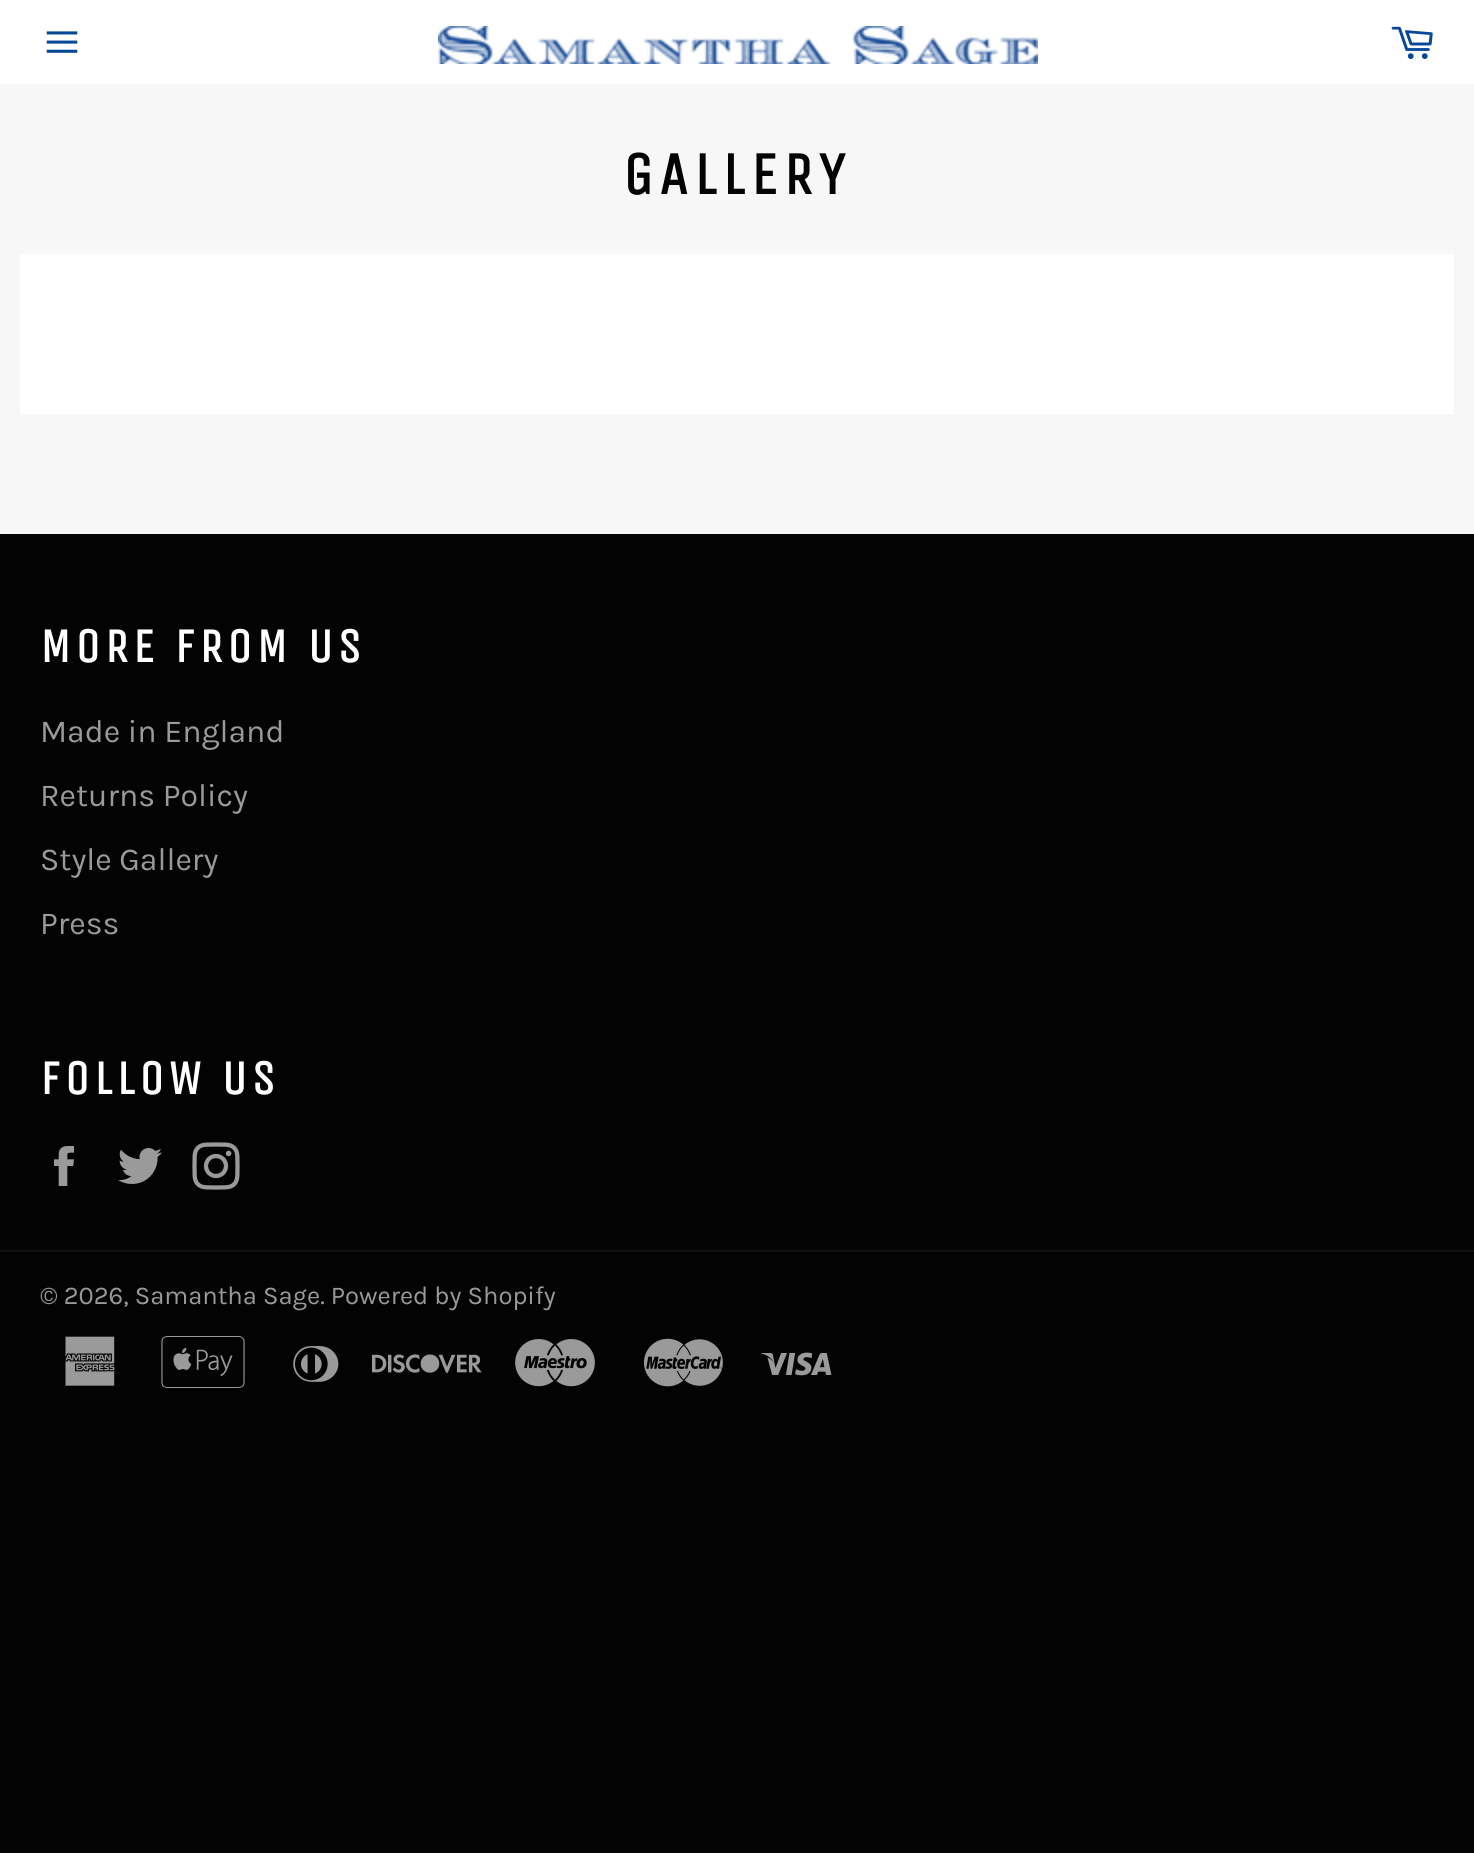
import math
import cairocffi as cairo

surface = cairo.ImageSurface(cairo.FORMAT_RGB24, 1474, 1853)
ctx = cairo.Context(surface)
options = cairo.FontOptions()
options.set_hint_metrics(cairo.HINT_METRICS_OFF)
options.set_hint_style(cairo.HINT_STYLE_NONE)
ctx.set_font_options(options)
ctx.set_miter_limit(4)


def rgb(r, g, b):
    ctx.set_source_rgb(r / 255, g / 255, b / 255)


def face(family, size, italic, bold):
    ctx.select_font_face(family, cairo.FONT_SLANT_ITALIC if italic else cairo.FONT_SLANT_NORMAL, cairo.FONT_WEIGHT_BOLD if bold else cairo.FONT_WEIGHT_NORMAL)
    ctx.set_font_size(size)


def label(x, y, s):
    ctx.move_to(x, y)
    ctx.show_text(s)


def tracked(x, y, s, letter, word):
    ctx.move_to(x, y)
    for ch in s:
        ctx.show_text(ch)
        ctx.rel_move_to(letter + word * (ch == ' '), 0)


def rect(x, y, w, h):
    ctx.rectangle(x, y, w, h)
    ctx.fill()


def image(path, x, y, w, h):
    ctx.save()
    ctx.set_source_surface(cairo.ImageSurface.create_from_png(path), x, y)
    ctx.rectangle(x, y, w, h)
    ctx.fill()
    ctx.restore()


rgb(3, 3, 3)
ctx.paint()
rgb(247, 247, 247)
rect(0, 84, 1474, 450)
rgb(255, 255, 255)
rect(0, 0, 1474, 84)
image('image0.png', 46, 31, 32, 22)
image('image1.png', 438, 26, 600, 38)
image('image2.png', 1391, 26, 42, 33)
face('Unica One', 60, 0, 1)
rgb(3, 3, 3)
tracked(623, 194, 'GALLERY', 6, 0)
rgb(255, 255, 255)
rect(20, 254, 1434, 160)
face('Unica One', 48, 0, 1)
tracked(40, 662, 'MORE FROM US', 4.75, 0)
face('Karla', 32, 0, 0)
rgb(154, 154, 154)
label(40, 742, 'Made in England')
label(40, 806, 'Returns Policy')
label(40, 870, 'Style Gallery')
label(40, 934, 'Press')
face('Unica One', 48, 0, 1)
rgb(255, 255, 255)
tracked(40, 1094, 'FOLLOW US', 4.75, 0)
image('image3.png', 54, 1146, 20, 40)
image('image4.png', 118, 1148, 44, 36)
image('image5.png', 192, 1142, 48, 48)
rgb(16, 16, 16)
rect(0, 1250, 1474, 2)
face('Karla', 25.6, 0, 0)
rgb(154, 154, 154)
label(40, 1304, '© 2026, Samantha Sage. Powered by Shopify')
image('image6.png', 65, 1336, 50, 50)
image('image7.png', 161, 1336, 84, 52)
image('image8.png', 293, 1346, 46, 36)
image('image9.png', 372, 1354, 110, 19)
image('image10.png', 515, 1339, 80, 48)
image('image11.png', 644, 1338, 79, 49)
image('image12.png', 761, 1352, 71, 24)
surface.write_to_png('render.png')
